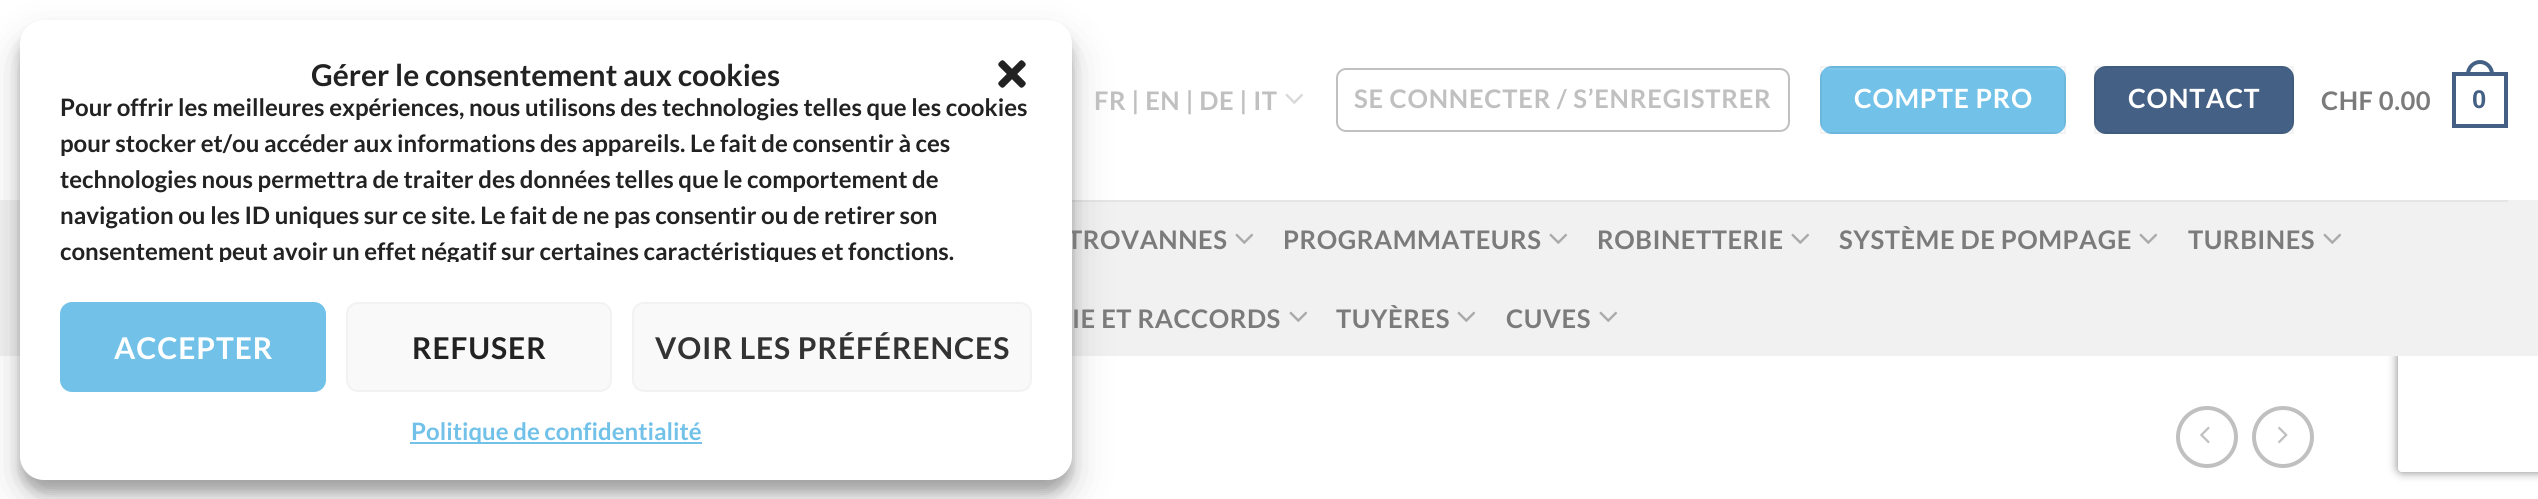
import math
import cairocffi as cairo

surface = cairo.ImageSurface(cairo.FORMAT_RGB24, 2538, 499)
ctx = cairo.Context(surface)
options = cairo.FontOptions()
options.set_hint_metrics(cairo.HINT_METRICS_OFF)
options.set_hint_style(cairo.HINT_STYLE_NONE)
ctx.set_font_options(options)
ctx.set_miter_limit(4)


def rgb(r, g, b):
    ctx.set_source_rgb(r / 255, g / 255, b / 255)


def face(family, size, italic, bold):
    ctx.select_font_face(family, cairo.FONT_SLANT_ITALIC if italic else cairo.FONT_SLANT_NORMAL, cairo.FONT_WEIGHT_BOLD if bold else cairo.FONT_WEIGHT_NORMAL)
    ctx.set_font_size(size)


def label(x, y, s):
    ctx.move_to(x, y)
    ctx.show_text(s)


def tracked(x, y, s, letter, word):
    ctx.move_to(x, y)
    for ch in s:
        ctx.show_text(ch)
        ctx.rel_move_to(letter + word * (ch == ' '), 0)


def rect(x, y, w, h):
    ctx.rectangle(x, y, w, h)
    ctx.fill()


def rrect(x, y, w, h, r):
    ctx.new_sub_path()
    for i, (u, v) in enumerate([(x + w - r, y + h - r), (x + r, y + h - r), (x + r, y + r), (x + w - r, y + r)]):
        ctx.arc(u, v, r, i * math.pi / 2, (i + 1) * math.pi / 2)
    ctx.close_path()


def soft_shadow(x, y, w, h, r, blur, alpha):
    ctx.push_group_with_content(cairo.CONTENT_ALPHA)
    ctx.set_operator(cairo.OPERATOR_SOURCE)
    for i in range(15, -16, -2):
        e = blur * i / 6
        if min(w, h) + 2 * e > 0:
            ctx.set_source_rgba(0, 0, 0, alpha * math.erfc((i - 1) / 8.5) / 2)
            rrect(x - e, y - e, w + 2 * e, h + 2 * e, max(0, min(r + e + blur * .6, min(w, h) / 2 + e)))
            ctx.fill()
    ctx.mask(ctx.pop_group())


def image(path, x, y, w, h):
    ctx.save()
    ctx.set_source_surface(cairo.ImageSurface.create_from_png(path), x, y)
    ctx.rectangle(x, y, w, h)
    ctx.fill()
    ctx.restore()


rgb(255, 255, 255)
ctx.paint()
ctx.save()
ctx.set_fill_rule(cairo.FILL_RULE_EVEN_ODD)
ctx.new_path()
ctx.move_to(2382, 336)
ctx.line_to(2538, 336)
ctx.line_to(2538, 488)
ctx.line_to(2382, 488)
ctx.close_path()
ctx.move_to(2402, 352)
ctx.line_to(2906, 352)
ctx.curve_to(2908, 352, 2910, 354, 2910, 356)
ctx.line_to(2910, 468)
ctx.curve_to(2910, 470, 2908, 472, 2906, 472)
ctx.line_to(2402, 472)
ctx.curve_to(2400, 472, 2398, 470, 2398, 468)
ctx.line_to(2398, 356)
ctx.curve_to(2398, 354, 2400, 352, 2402, 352)
ctx.close_path()
ctx.clip()
rgb(128, 128, 128)
soft_shadow(2398, 352, 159, 120, 4, 5, 1)
ctx.restore()
rgb(241, 241, 241)
rect(0, 200, 2538, 156)
rgb(229, 229, 229)
rect(1072, 200, 1436, 2)
rgb(0, 0, 0)
soft_shadow(20, 32, 1052, 460, 24, 6, 0.23)
soft_shadow(20, 40, 1052, 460, 24, 20, 0.19)
face('Lato', 25.6, 0, 1)
rgb(123, 123, 123)
tracked(1067, 249, 'TROVANNES', 0.5, 0)
rgb(255, 255, 255)
rrect(20, 20, 1052, 460, 24)
ctx.fill()
face('Lato', 30, 0, 1)
rgb(34, 34, 34)
label(311, 86, 'Gérer le consentement aux cookies')
image('image0.png', 998, 60, 28, 28)
face('Lato', 24, 0, 1)
label(60, 116, 'Pour offrir les meilleures expériences, nous utilisons des technologies telles que les cookies')
label(60, 152, 'pour stocker et/ou accéder aux informations des appareils. Le fait de consentir à ces')
label(60, 188, 'technologies nous permettra de traiter des données telles que le comportement de')
label(60, 224, 'navigation ou les ID uniques sur ce site. Le fait de ne pas consentir ou de retirer son')
ctx.save()
ctx.rectangle(60, 90, 972, 172)
ctx.clip()
label(60, 260, 'consentement peut avoir un effet négatif sur certaines caractéristiques et fonctions.')
ctx.restore()
rgb(113, 193, 232)
rrect(61, 303, 264, 88, 11)
ctx.fill_preserve()
ctx.stroke()
face('Lato', 30, 0, 1)
rgb(255, 255, 255)
tracked(114, 359, 'ACCEPTER', 0.9, 0)
rgb(249, 249, 249)
rrect(347, 303, 264, 88, 11)
ctx.fill_preserve()
rgb(242, 242, 242)
ctx.stroke()
rgb(34, 34, 34)
tracked(412, 359, 'REFUSER', 0.9, 0)
rgb(249, 249, 249)
rrect(633, 303, 398, 88, 11)
ctx.fill_preserve()
rgb(242, 242, 242)
ctx.stroke()
rgb(51, 51, 51)
tracked(655, 359, 'VOIR LES PRÉFÉRENCES', 0.9, 0)
rgb(113, 193, 232)
rect(410, 442, 292, 2)
face('Lato', 24, 0, 1)
label(411, 440, 'Politique de confidentialité')
face('Lato', 25.6, 0, 1)
rgb(192, 192, 192)
tracked(1094, 110, 'FR | EN | DE | IT', 0.5, 0)
image('image1.png', 1285, 93, 18, 11)
rrect(1337, 69, 452, 62, 9)
ctx.stroke()
tracked(1354, 108, 'SE CONNECTER / S’ENREGISTRER', 0.75, 0)
rgb(113, 193, 232)
rrect(1820, 66, 246, 68, 12)
ctx.fill()
ctx.rectangle(1821, 67, 244, 66)
ctx.set_source_rgba(0, 0, 0, 0.05)
ctx.stroke()
ctx.set_source_rgba(1, 1, 1, 0.1)
ctx.new_path()
ctx.move_to(1832, 68)
ctx.curve_to(1830, 68, 1828, 69, 1826, 70)
ctx.line_to(2060, 70)
ctx.curve_to(2058, 69, 2056, 68, 2054, 68)
ctx.close_path()
ctx.fill()
face('Lato', 26.5, 0, 1)
rgb(255, 255, 255)
tracked(1854, 108, 'COMPTE PRO', 0.75, 0)
rgb(68, 96, 132)
rrect(2094, 66, 200, 68, 12)
ctx.fill()
ctx.rectangle(2095, 67, 198, 66)
ctx.set_source_rgba(0, 0, 0, 0.05)
ctx.stroke()
rgb(255, 255, 255)
tracked(2128, 108, 'CONTACT', 0.75, 0)
face('Lato', 25.6, 0, 1)
rgb(123, 123, 123)
tracked(2321, 110, 'CHF 0.00', 0.5, 0)
ctx.rectangle(2454, 74, 52, 52)
rgb(68, 96, 132)
ctx.set_line_width(4)
ctx.stroke()
ctx.set_fill_rule(cairo.FILL_RULE_EVEN_ODD)
ctx.new_path()
ctx.move_to(2480, 60)
ctx.curve_to(2487.5, 60, 2494, 66.5, 2494, 74)
ctx.line_to(2494, 76)
ctx.line_to(2466, 76)
ctx.line_to(2466, 74)
ctx.curve_to(2466, 66.5, 2472.5, 60, 2480, 60)
ctx.close_path()
ctx.move_to(2480, 64)
ctx.curve_to(2485.5, 64, 2490, 68.5, 2490, 74)
ctx.line_to(2490, 76)
ctx.line_to(2470, 76)
ctx.line_to(2470, 74)
ctx.curve_to(2470, 68.5, 2474.5, 64, 2480, 64)
ctx.close_path()
ctx.fill()
face('Liberation Sans', 25.6, 0, 1)
tracked(2472, 108, '0', 0.5, 0)
image('image2.png', 1235, 233, 19, 11)
face('Lato', 25.6, 0, 1)
rgb(123, 123, 123)
tracked(1283, 249, 'PROGRAMMATEURS', 0.5, 0)
image('image2.png', 1549, 233, 19, 11)
tracked(1597, 249, 'ROBINETTERIE', 0.5, 0)
image('image2.png', 1791, 233, 19, 11)
tracked(1839, 249, 'SYSTÈME DE POMPAGE', 0.5, 0)
image('image2.png', 2139, 233, 19, 11)
tracked(2188, 249, 'TURBINES', 0.5, 0)
image('image2.png', 2323, 233, 19, 11)
tracked(1072, 328, 'IE ET RACCORDS', 0.5, 0)
image('image2.png', 1289, 311, 19, 11)
tracked(1336, 328, 'TUYÈRES', 0.5, 0)
image('image2.png', 1457, 311, 19, 11)
tracked(1506, 328, 'CUVES', 0.5, 0)
image('image2.png', 1599, 311, 19, 11)
ctx.arc(2207, 437, 29, 0, 2 * math.pi)
rgb(192, 192, 192)
ctx.stroke()
image('image3.png', 2200, 426, 10, 18)
ctx.arc(2283, 437, 29, 0, 2 * math.pi)
ctx.stroke()
image('image4.png', 2278, 426, 10, 18)
surface.write_to_png('render.png')
